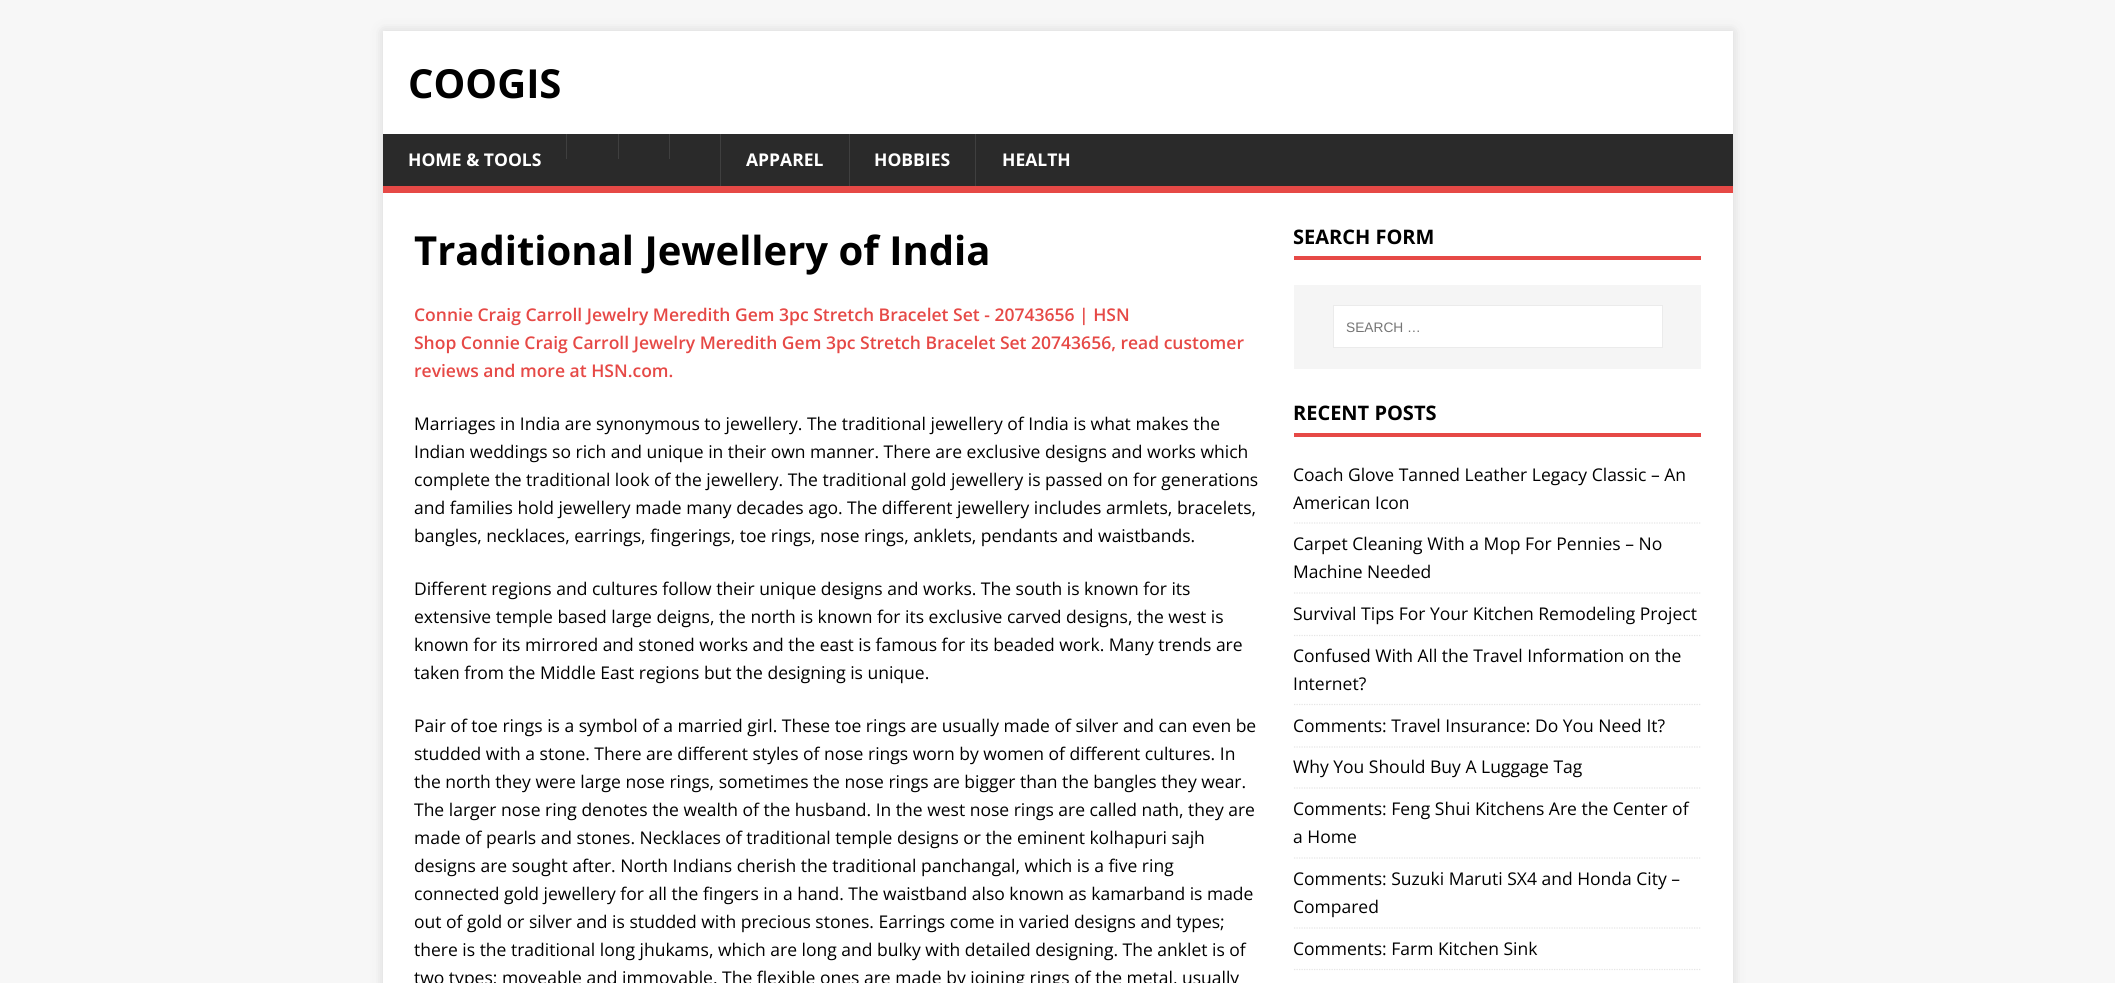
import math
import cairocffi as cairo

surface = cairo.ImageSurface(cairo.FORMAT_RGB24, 2115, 983)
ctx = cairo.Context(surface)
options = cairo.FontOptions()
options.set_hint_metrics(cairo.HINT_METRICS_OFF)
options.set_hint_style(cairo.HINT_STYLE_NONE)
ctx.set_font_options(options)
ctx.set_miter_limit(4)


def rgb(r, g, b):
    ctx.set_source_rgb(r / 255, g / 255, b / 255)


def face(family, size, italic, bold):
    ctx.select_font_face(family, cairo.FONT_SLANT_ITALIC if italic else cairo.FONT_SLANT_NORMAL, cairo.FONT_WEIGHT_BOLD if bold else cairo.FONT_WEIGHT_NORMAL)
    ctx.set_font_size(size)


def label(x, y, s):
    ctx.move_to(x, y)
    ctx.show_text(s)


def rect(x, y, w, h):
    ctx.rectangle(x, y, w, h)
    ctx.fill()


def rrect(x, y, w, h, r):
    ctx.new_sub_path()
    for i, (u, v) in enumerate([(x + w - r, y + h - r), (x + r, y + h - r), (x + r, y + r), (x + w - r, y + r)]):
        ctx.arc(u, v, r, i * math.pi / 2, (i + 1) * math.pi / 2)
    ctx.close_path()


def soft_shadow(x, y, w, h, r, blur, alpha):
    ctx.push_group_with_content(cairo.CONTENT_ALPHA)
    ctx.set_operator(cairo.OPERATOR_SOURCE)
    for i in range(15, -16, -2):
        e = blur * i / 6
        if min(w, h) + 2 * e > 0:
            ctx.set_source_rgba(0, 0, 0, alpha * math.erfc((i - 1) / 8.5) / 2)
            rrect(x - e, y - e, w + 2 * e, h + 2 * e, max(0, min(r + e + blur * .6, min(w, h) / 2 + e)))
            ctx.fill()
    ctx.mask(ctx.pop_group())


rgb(247, 247, 247)
ctx.paint()
rgb(50, 50, 50)
soft_shadow(383, 31, 1350, 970, 0, 6, 0.17)
rgb(255, 255, 255)
rect(383, 31, 1350, 103)
face('Open Sans', 40, 0, 1)
rgb(0, 0, 0)
label(408, 98, 'COOGIS')
rgb(42, 42, 42)
rect(383, 134, 1350, 52)
rgb(230, 73, 70)
rect(383, 186, 1350, 7)
face('Open Sans', 17.5, 0, 1)
rgb(255, 255, 255)
label(408, 166, 'HOME & TOOLS')
rgb(63, 63, 63)
rect(566, 134, 1, 25)
rect(618, 134, 1, 25)
rect(669, 134, 1, 25)
rect(720, 134, 1, 52)
rgb(255, 255, 255)
label(746, 166, 'APPAREL')
rgb(63, 63, 63)
rect(849, 134, 1, 52)
rgb(255, 255, 255)
label(874, 166, 'HOBBIES')
rgb(63, 63, 63)
rect(975, 134, 1, 52)
rgb(255, 255, 255)
label(1002, 166, 'HEALTH')
rect(383, 193, 1350, 790)
face('Open Sans', 40, 0, 1)
rgb(0, 0, 0)
label(414, 265, 'Traditional Jewellery of India')
face('Open Sans SemiBold', 17.5, 0, 0)
rgb(230, 73, 70)
label(414, 321, 'Connie Craig Carroll Jewelry Meredith Gem 3pc Stretch Bracelet Set - 20743656 | HSN')
label(414, 349, 'Shop Connie Craig Carroll Jewelry Meredith Gem 3pc Stretch Bracelet Set 20743656, read customer')
label(414, 377, 'reviews and more at HSN.com.')
face('Open Sans', 17.5, 0, 0)
rgb(0, 0, 0)
label(414, 430, 'Marriages in India are synonymous to jewellery. The traditional jewellery of India is what makes the')
label(414, 458, 'Indian weddings so rich and unique in their own manner. There are exclusive designs and works which')
label(414, 486, 'complete the traditional look of the jewellery. The traditional gold jewellery is passed on for generations')
label(414, 514, 'and families hold jewellery made many decades ago. The different jewellery includes armlets, bracelets,')
label(414, 542, 'bangles, necklaces, earrings, fingerings, toe rings, nose rings, anklets, pendants and waistbands.')
label(414, 595, 'Different regions and cultures follow their unique designs and works. The south is known for its')
label(414, 623, 'extensive temple based large deigns, the north is known for its exclusive carved designs, the west is')
label(414, 651, 'known for its mirrored and stoned works and the east is famous for its beaded work. Many trends are')
label(414, 679, 'taken from the Middle East regions but the designing is unique.')
label(414, 732, 'Pair of toe rings is a symbol of a married girl. These toe rings are usually made of silver and can even be')
label(414, 760, 'studded with a stone. There are different styles of nose rings worn by women of different cultures. In')
label(414, 788, 'the north they were large nose rings, sometimes the nose rings are bigger than the bangles they wear.')
label(414, 816, 'The larger nose ring denotes the wealth of the husband. In the west nose rings are called nath, they are')
label(414, 844, 'made of pearls and stones. Necklaces of traditional temple designs or the eminent kolhapuri sajh')
label(414, 872, 'designs are sought after. North Indians cherish the traditional panchangal, which is a five ring')
label(414, 900, 'connected gold jewellery for all the fingers in a hand. The waistband also known as kamarband is made')
label(414, 928, 'out of gold or silver and is studded with precious stones. Earrings come in varied designs and types;')
label(414, 956, 'there is the traditional long jhukams, which are long and bulky with detailed designing. The anklet is of')
label(414, 984, 'two types; moveable and immovable. The flexible ones are made by joining rings of the metal, usually')
rgb(230, 73, 70)
rect(1294, 256, 407, 4)
face('Open Sans', 20, 0, 1)
rgb(0, 0, 0)
label(1293, 244, 'SEARCH FORM')
rgb(245, 245, 245)
rect(1294, 285, 407, 84)
rgb(255, 255, 255)
ctx.rectangle(1333.5, 305.5, 329, 42)
ctx.fill_preserve()
rgb(235, 235, 235)
ctx.set_line_width(1)
ctx.stroke()
face('Liberation Sans', 13.75, 0, 0)
rgb(117, 117, 117)
label(1346, 332, 'SEARCH …')
rgb(230, 73, 70)
rect(1294, 433, 407, 4)
face('Open Sans', 20, 0, 1)
rgb(0, 0, 0)
label(1293, 420, 'RECENT POSTS')
ctx.new_path()
ctx.move_to(1294, 523)
ctx.line_to(1701, 523)
rgb(229, 229, 229)
ctx.set_line_width(1.2)
ctx.set_dash([1.25, 1.25])
ctx.stroke()
face('Open Sans', 17.5, 0, 0)
rgb(0, 0, 0)
label(1293, 481, 'Coach Glove Tanned Leather Legacy Classic – An')
label(1293, 509, 'American Icon')
ctx.new_path()
ctx.move_to(1294, 593)
ctx.line_to(1701, 593)
rgb(229, 229, 229)
ctx.stroke()
rgb(0, 0, 0)
label(1293, 550, 'Carpet Cleaning With a Mop For Pennies – No')
label(1293, 578, 'Machine Needed')
ctx.new_path()
ctx.move_to(1294, 635.5)
ctx.line_to(1701, 635.5)
rgb(229, 229, 229)
ctx.stroke()
rgb(0, 0, 0)
label(1293, 620, 'Survival Tips For Your Kitchen Remodeling Project')
ctx.new_path()
ctx.move_to(1294, 704.5)
ctx.line_to(1701, 704.5)
rgb(229, 229, 229)
ctx.stroke()
rgb(0, 0, 0)
label(1293, 662, 'Confused With All the Travel Information on the')
label(1293, 690, 'Internet?')
ctx.new_path()
ctx.move_to(1294, 747)
ctx.line_to(1701, 747)
rgb(229, 229, 229)
ctx.stroke()
rgb(0, 0, 0)
label(1293, 732, 'Comments: Travel Insurance: Do You Need It?')
ctx.new_path()
ctx.move_to(1294, 788)
ctx.line_to(1701, 788)
rgb(229, 229, 229)
ctx.stroke()
rgb(0, 0, 0)
label(1293, 773, 'Why You Should Buy A Luggage Tag')
ctx.new_path()
ctx.move_to(1294, 858)
ctx.line_to(1701, 858)
rgb(229, 229, 229)
ctx.stroke()
rgb(0, 0, 0)
label(1293, 815, 'Comments: Feng Shui Kitchens Are the Center of')
label(1293, 843, 'a Home')
ctx.new_path()
ctx.move_to(1294, 928)
ctx.line_to(1701, 928)
rgb(229, 229, 229)
ctx.stroke()
rgb(0, 0, 0)
label(1293, 885, 'Comments: Suzuki Maruti SX4 and Honda City –')
label(1293, 913, 'Compared')
ctx.new_path()
ctx.move_to(1294, 969.5)
ctx.line_to(1701, 969.5)
rgb(229, 229, 229)
ctx.stroke()
rgb(0, 0, 0)
label(1293, 955, 'Comments: Farm Kitchen Sink')
surface.write_to_png('render.png')
